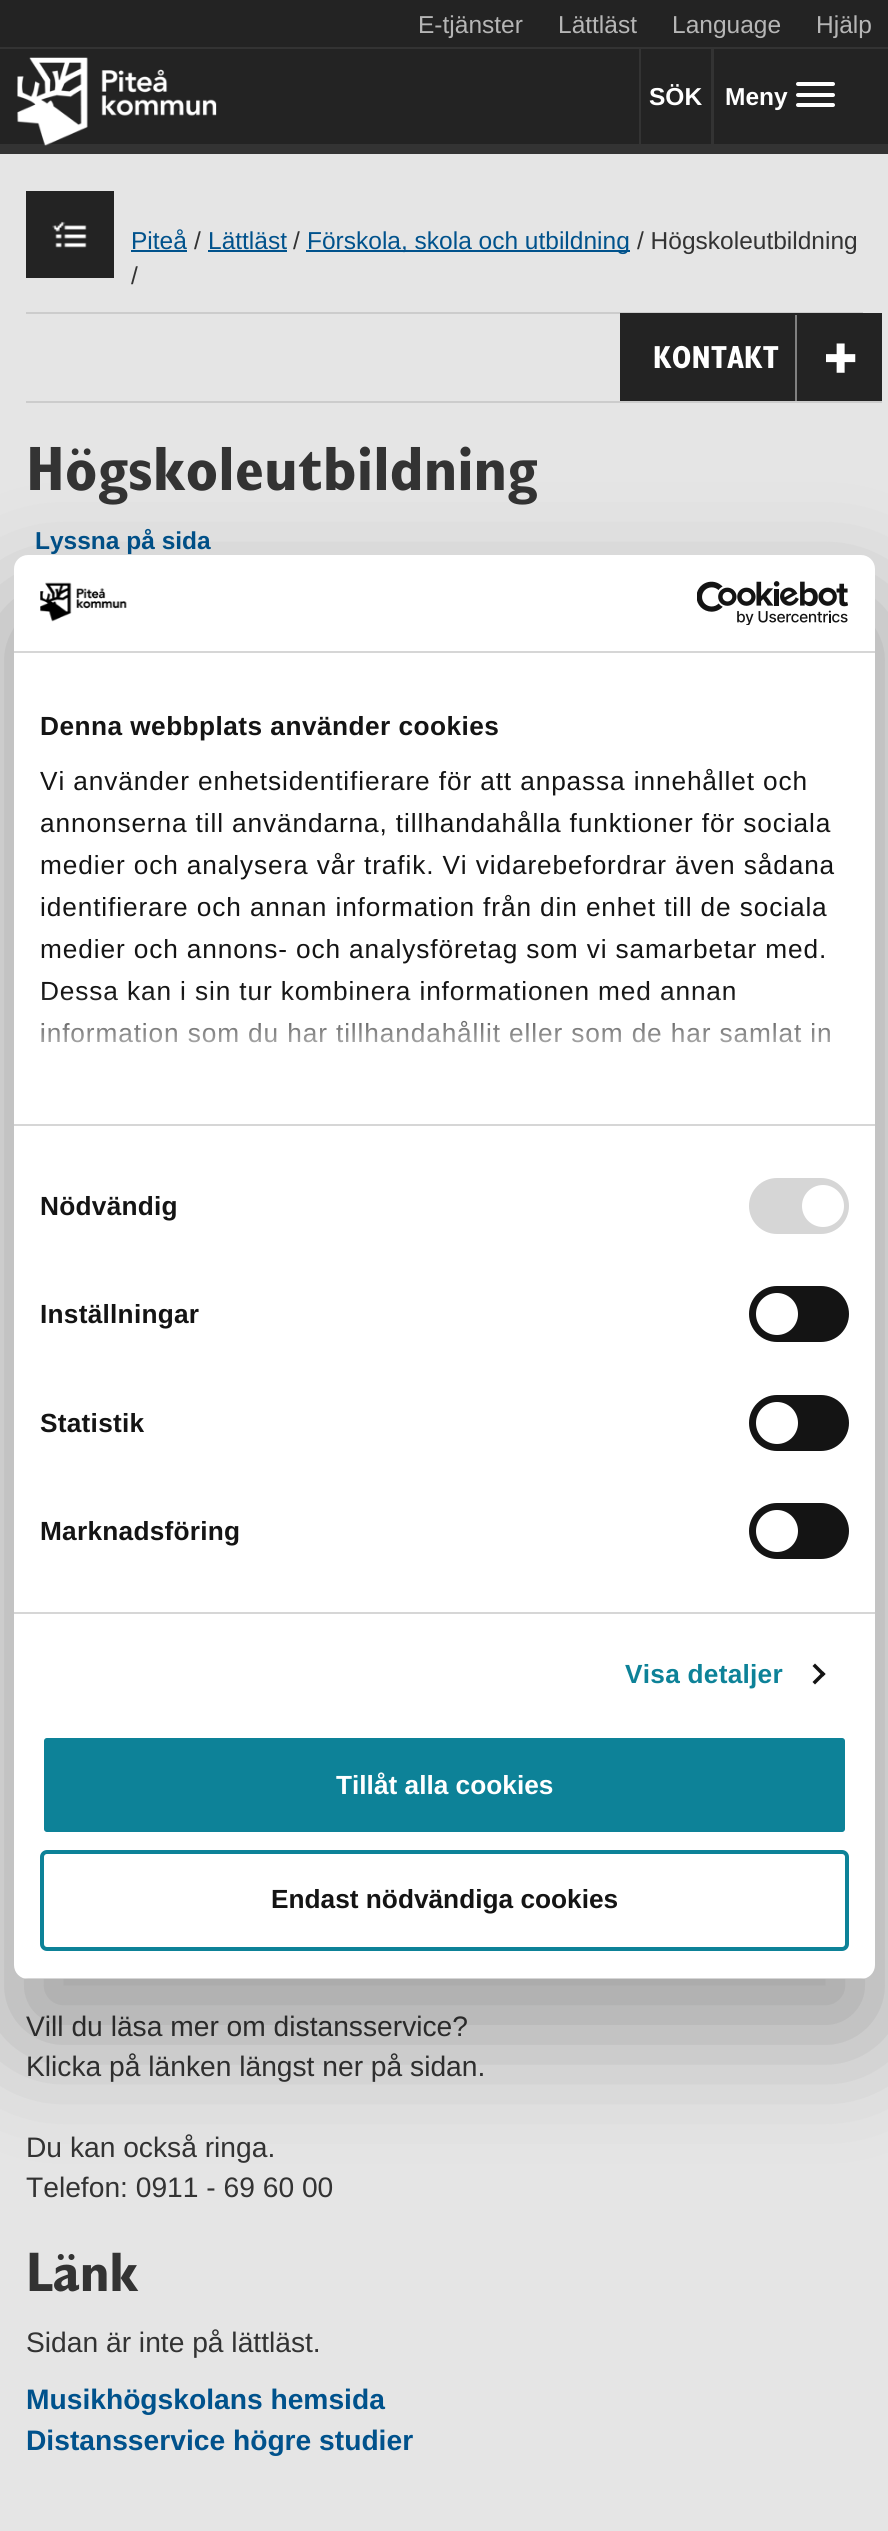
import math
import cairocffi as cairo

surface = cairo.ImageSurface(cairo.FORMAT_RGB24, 888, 2531)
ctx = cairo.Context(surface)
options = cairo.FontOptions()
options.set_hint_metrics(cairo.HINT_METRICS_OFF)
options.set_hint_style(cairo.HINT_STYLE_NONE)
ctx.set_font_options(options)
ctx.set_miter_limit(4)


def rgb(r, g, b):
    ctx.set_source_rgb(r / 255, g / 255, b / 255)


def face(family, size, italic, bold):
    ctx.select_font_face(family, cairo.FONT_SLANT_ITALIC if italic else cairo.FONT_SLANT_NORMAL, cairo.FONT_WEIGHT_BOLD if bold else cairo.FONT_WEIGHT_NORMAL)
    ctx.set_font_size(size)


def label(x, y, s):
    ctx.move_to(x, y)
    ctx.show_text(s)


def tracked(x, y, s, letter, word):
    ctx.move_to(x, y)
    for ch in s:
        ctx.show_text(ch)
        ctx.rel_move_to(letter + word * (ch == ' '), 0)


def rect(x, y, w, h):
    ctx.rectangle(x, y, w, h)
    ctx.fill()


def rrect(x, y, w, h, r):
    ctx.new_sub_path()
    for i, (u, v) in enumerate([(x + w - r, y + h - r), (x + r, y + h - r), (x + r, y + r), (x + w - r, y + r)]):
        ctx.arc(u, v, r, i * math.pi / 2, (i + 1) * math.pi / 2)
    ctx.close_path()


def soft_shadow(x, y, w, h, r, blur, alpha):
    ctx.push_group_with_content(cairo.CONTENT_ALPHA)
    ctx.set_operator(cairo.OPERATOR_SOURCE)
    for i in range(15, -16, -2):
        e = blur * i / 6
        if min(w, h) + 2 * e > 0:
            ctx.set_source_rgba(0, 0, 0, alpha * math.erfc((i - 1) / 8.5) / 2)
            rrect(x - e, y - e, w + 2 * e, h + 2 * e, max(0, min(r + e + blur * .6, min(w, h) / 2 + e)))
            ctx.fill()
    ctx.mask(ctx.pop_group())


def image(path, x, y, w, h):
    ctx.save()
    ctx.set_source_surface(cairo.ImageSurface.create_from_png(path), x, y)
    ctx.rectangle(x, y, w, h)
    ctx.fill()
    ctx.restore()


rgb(229, 229, 229)
ctx.paint()
rgb(35, 35, 35)
rect(0, 0, 888, 144)
rgb(51, 51, 51)
rect(0, 144, 888, 10)
face('Liberation Sans', 24.5, 0, 0)
rgb(182, 182, 182)
label(418, 33, 'E-tjänster')
label(558, 33, 'Lättläst')
label(672, 33, 'Language')
label(816, 33, 'Hjälp')
rgb(51, 51, 51)
rect(0, 47, 888, 2)
image('image0.png', 17, 57, 200, 89)
rect(711, 49, 3, 95)
rect(639, 49, 2, 95)
face('Liberation Sans', 24.5, 0, 1)
rgb(255, 255, 255)
label(649, 105, 'SÖK')
label(725, 105, 'Meny')
rrect(796, 82, 39, 4, 2)
ctx.fill()
rrect(796, 93, 39, 4, 2)
ctx.fill()
rrect(796, 103, 39, 4, 2)
ctx.fill()
rgb(35, 35, 35)
rect(26, 191, 88, 87)
image('image1.png', 52, 221, 35, 27)
rgb(204, 204, 204)
rect(26, 312, 837, 2)
face('Liberation Sans', 24.5, 0, 0)
rgb(0, 82, 140)
label(131, 249, 'Piteå')
rect(131, 250, 56, 2)
rgb(51, 51, 51)
label(194, 249, '/')
rgb(0, 82, 140)
label(208, 249, 'Lättläst')
rect(208, 250, 79, 2)
rgb(51, 51, 51)
label(293, 249, '/')
rgb(0, 82, 140)
rect(306, 250, 324, 2)
label(307, 249, 'Förskola, skola och utbildning')
rgb(51, 51, 51)
label(637, 249, '/ Högskoleutbildning')
label(131, 284, '/')
rgb(204, 204, 204)
rect(26, 401, 856, 2)
rgb(35, 35, 35)
rect(620, 313, 262, 88)
face('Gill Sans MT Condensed', 32, 0, 1)
rgb(255, 255, 255)
label(653, 368, 'KONTAKT')
rgb(128, 128, 128)
rect(795, 315, 2, 86)
image('image2.png', 826, 343, 30, 30)
face('Gill Sans MT Condensed', 63, 0, 1)
rgb(51, 51, 51)
label(26, 490, 'Högskoleutbildning')
face('Liberation Sans', 24.5, 0, 1)
rgb(0, 82, 140)
label(35, 549, 'Lyssna på sida')
face('Liberation Sans', 28.2, 0, 0)
rgb(51, 51, 51)
label(26, 2036, 'Vill du läsa mer om distansservice?')
label(26, 2076, 'Klicka på länken längst ner på sidan.')
label(26, 2157, 'Du kan också ringa.')
label(26, 2197, 'Telefon: 0911 - 69 60 00')
face('Gill Sans MT Condensed', 56, 0, 1)
label(26, 2291, 'Länk')
face('Liberation Sans', 28.2, 0, 0)
label(26, 2352, 'Sidan är inte på lättläst.')
face('Liberation Sans', 28.2, 0, 1)
rgb(0, 82, 140)
label(26, 2409, 'Musikhögskolans hemsida')
label(26, 2450, 'Distansservice högre studier')
rgb(0, 0, 0)
soft_shadow(14, 611, 861, 1424, 14, 59.5, 0.3)
rgb(255, 255, 255)
rrect(14, 555, 861, 1424, 14)
ctx.fill()
rgb(214, 214, 214)
rect(14, 651, 861, 2)
image('image3.png', 40, 582, 87, 40)
image('image4.png', 697, 581, 151, 44)
rect(14, 1124, 861, 2)
face('Liberation Sans', 26.25, 0, 1)
rgb(20, 20, 20)
tracked(40, 735, 'Denna webbplats använder cookies', 0.45, 0)
face('Liberation Sans', 26.25, 0, 0)
tracked(40, 790, 'Vi använder enhetsidentifierare för att anpassa innehållet och', 0.88, 0)
tracked(40, 832, 'annonserna till användarna, tillhandahålla funktioner för sociala', 0.88, 0)
tracked(40, 874, 'medier och analysera vår trafik. Vi vidarebefordrar även sådana', 0.88, 0)
tracked(40, 916, 'identifierare och annan information från din enhet till de sociala', 0.88, 0)
tracked(40, 958, 'medier och annons- och analysföretag som vi samarbetar med.', 0.88, 0)
tracked(40, 1000, 'Dessa kan i sin tur kombinera informationen med annan', 0.88, 0)
tracked(40, 1042, 'information som du har tillhandahållit eller som de har samlat in', 0.88, 0)
gradient = cairo.LinearGradient(433, 1124, 433, 992)
gradient.add_color_stop_rgba(0, 1, 1, 1, 1)
gradient.add_color_stop_rgba(0.5, 1, 1, 1, 0.8)
gradient.add_color_stop_rgba(1, 1, 1, 1, 0)
ctx.set_source(gradient)
rect(42, 994, 788, 49)
rgb(214, 214, 214)
rect(14, 1612, 861, 2)
face('Liberation Sans', 26.25, 0, 1)
rgb(20, 20, 20)
tracked(40, 1215, 'Nödvändig', 0.25, 0)
rgb(214, 214, 214)
rrect(749, 1178, 100, 56, 28)
ctx.fill()
rgb(255, 255, 255)
ctx.arc(823, 1206, 21, 0, 2 * math.pi)
ctx.fill()
rgb(20, 20, 20)
tracked(40, 1323, 'Inställningar', 0.25, 0)
rrect(749, 1286, 100, 56, 28)
ctx.fill()
rgb(255, 255, 255)
ctx.arc(777, 1314, 21, 0, 2 * math.pi)
ctx.fill()
rgb(20, 20, 20)
tracked(40, 1432, 'Statistik', 0.25, 0)
rrect(749, 1395, 100, 56, 28)
ctx.fill()
rgb(255, 255, 255)
ctx.arc(777, 1423, 21, 0, 2 * math.pi)
ctx.fill()
rgb(20, 20, 20)
tracked(40, 1540, 'Marknadsföring', 0.25, 0)
rrect(749, 1503, 100, 56, 28)
ctx.fill()
rgb(255, 255, 255)
ctx.arc(777, 1531, 21, 0, 2 * math.pi)
ctx.fill()
rgb(13, 130, 152)
tracked(625, 1683, 'Visa detaljer', 0.25, 0)
rgb(20, 20, 20)
ctx.new_path()
ctx.move_to(815, 1663.5)
ctx.line_to(825.5, 1674)
ctx.line_to(823, 1676.5)
ctx.line_to(812.5, 1666)
ctx.close_path()
ctx.fill()
ctx.new_path()
ctx.move_to(823, 1671.5)
ctx.line_to(825.5, 1674)
ctx.line_to(815, 1684.5)
ctx.line_to(812.5, 1682)
ctx.close_path()
ctx.fill()
ctx.save()
rrect(14, 555, 861, 1424, 14)
ctx.clip()
rgb(214, 214, 214)
rect(23, 1978, 843, 1)
ctx.restore()
rgb(13, 130, 152)
rrect(42, 1736, 805, 98, 5)
ctx.fill_preserve()
rgb(255, 255, 255)
ctx.set_line_width(4)
ctx.stroke()
label(336, 1794, 'Tillåt alla cookies')
rrect(42, 1852, 805, 97, 5)
rgb(13, 130, 152)
ctx.stroke()
rgb(20, 20, 20)
label(271, 1908, 'Endast nödvändiga cookies')
surface.write_to_png('render.png')
